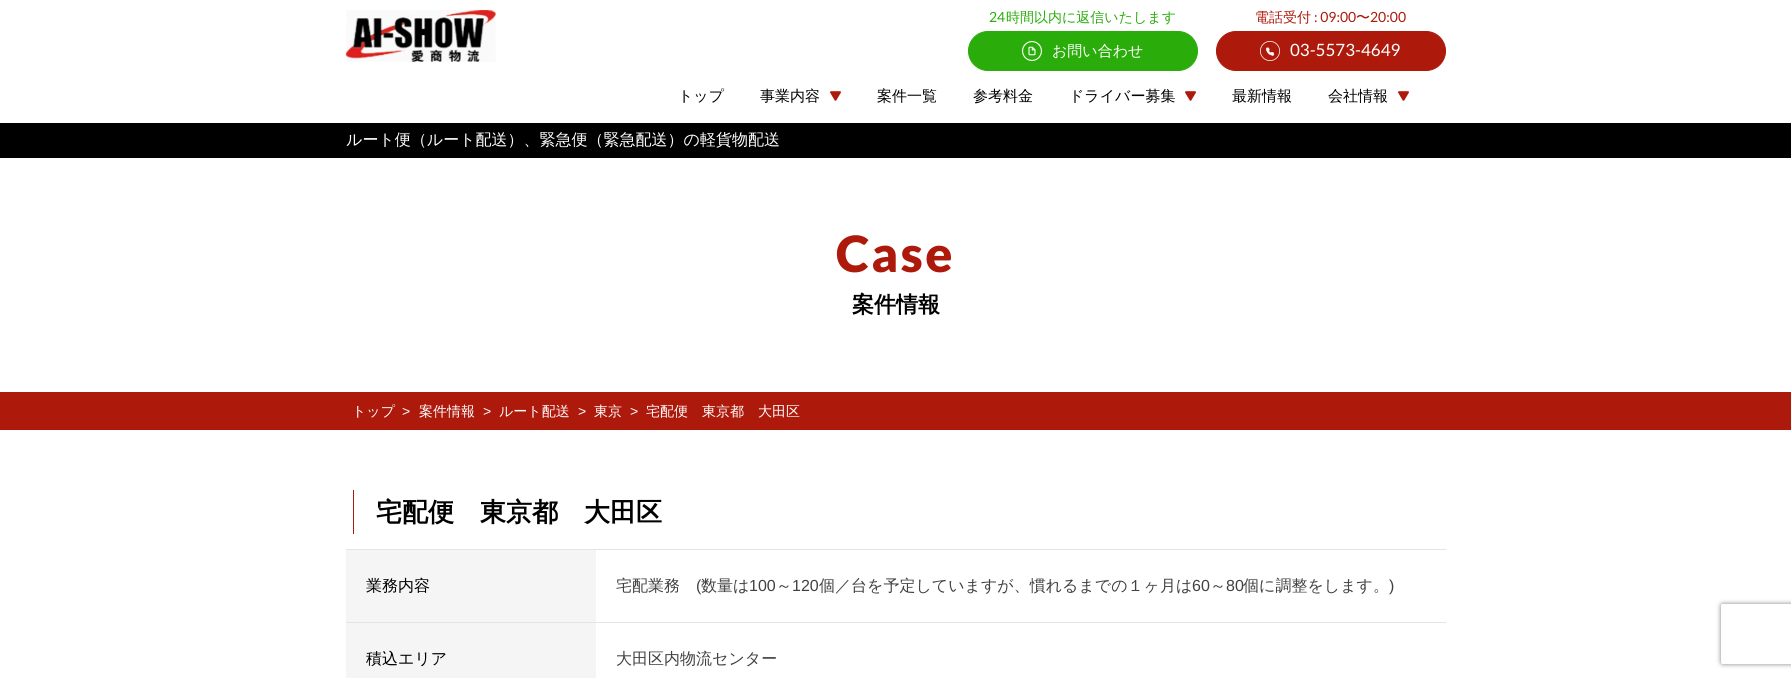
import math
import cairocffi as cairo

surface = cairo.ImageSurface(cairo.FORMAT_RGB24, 1791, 678)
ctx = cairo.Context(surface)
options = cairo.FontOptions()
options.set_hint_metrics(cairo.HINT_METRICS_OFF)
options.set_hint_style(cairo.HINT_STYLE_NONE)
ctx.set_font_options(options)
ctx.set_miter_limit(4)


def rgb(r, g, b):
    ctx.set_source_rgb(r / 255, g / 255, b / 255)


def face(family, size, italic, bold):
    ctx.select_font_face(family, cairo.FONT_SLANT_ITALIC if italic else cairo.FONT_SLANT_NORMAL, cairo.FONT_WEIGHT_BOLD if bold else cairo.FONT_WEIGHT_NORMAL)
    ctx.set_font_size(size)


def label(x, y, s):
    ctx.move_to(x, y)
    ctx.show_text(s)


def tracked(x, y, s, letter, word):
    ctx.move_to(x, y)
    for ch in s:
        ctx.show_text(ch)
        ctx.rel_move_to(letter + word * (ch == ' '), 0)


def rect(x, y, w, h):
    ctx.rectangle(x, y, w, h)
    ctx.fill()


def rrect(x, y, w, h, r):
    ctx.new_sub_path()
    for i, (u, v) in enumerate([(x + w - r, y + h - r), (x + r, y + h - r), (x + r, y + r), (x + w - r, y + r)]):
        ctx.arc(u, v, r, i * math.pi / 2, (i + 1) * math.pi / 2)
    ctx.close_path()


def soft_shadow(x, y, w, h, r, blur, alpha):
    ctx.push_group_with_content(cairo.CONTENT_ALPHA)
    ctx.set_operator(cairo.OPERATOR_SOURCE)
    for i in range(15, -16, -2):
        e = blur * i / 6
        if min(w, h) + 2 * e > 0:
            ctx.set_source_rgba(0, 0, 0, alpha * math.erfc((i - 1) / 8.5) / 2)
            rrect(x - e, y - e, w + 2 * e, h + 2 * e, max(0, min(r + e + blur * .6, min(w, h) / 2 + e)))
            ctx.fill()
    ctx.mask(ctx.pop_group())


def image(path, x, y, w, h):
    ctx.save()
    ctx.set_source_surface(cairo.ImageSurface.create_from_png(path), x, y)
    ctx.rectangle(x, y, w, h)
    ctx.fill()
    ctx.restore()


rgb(255, 255, 255)
ctx.paint()
image('image0.png', 345, 10, 151, 52)
face('Lato', 14, 0, 0)
rgb(42, 173, 11)
label(989, 22, '24')
face('WenQuanYi Zen Hei Medium', 14, 0, 0)
label(1006, 22, '時間以内に返信いたします')
rrect(968.5, 31.5, 229, 39, 19.5)
ctx.fill_preserve()
ctx.set_line_width(1)
ctx.stroke()
image('image1.png', 1022, 41, 20, 20)
face('WenQuanYi Zen Hei Medium', 15, 0, 0)
rgb(255, 255, 255)
label(1052, 56, 'お問い合わせ')
face('WenQuanYi Zen Hei Medium', 14, 0, 0)
rgb(173, 25, 11)
label(1255, 22, '電話受付')
face('Lato', 14, 0, 0)
label(1314, 22, ': 09:00')
face('WenQuanYi Zen Hei Medium', 14, 0, 0)
label(1356, 22, '〜')
face('Lato', 14, 0, 0)
label(1370, 22, '20:00')
rrect(1216.5, 31.5, 229, 39, 19.5)
ctx.fill_preserve()
ctx.stroke()
image('image2.png', 1260, 41, 20, 20)
face('Lato', 17, 0, 0)
rgb(255, 255, 255)
label(1290, 56, '03-5573-4649')
face('WenQuanYi Zen Hei Medium', 15, 0, 0)
rgb(0, 0, 0)
label(678, 101, 'トップ')
label(760, 101, '事業内容')
image('image3.png', 830, 91, 11, 10)
label(877, 101, '案件一覧')
label(973, 101, '参考料金')
label(1069, 101, 'ドライバー募集')
image('image3.png', 1185, 91, 11, 10)
label(1232, 101, '最新情報')
label(1328, 101, '会社情報')
image('image3.png', 1398, 91, 11, 10)
rect(0, 123, 1791, 35)
face('WenQuanYi Zen Hei Medium', 16, 0, 0)
rgb(255, 255, 255)
label(346, 145, 'ルート便（ルート配送）、緊急便（緊急配送）の軽貨物配送')
face('Lato Black', 50, 0, 0)
rgb(173, 25, 11)
tracked(836, 272, 'Case', 2.5, 0)
face('WenQuanYi Zen Hei', 22, 0, 1)
rgb(0, 0, 0)
label(852, 312, '案件情報')
rgb(173, 25, 11)
rect(0, 392, 1791, 38)
face('WenQuanYi Zen Hei Medium', 14, 0, 0)
rgb(255, 255, 255)
label(352, 416, 'トップ')
face('Liberation Sans', 14, 0, 0)
label(402, 416, '>')
face('WenQuanYi Zen Hei Medium', 14, 0, 0)
label(419, 416, '案件情報')
face('Liberation Sans', 14, 0, 0)
label(483, 416, '>')
face('WenQuanYi Zen Hei Medium', 14, 0, 0)
label(499, 416, 'ルート配送')
face('Liberation Sans', 14, 0, 0)
label(578, 416, '>')
face('WenQuanYi Zen Hei Medium', 14, 0, 0)
label(594, 416, '東京')
face('Liberation Sans', 14, 0, 0)
label(630, 416, '>')
face('WenQuanYi Zen Hei Medium', 14, 0, 0)
label(646, 416, '宅配便　東京都　大田区')
rgb(173, 25, 11)
rect(353, 490, 1, 44)
face('WenQuanYi Zen Hei', 26, 0, 1)
rgb(0, 0, 0)
label(376, 521, '宅配便　東京都　大田区')
rgb(228, 228, 228)
rect(346, 549, 1100, 1)
rect(346, 622, 1100, 1)
rgb(245, 245, 245)
rect(346, 550, 250, 72)
face('WenQuanYi Zen Hei Medium', 16, 0, 0)
rgb(0, 0, 0)
label(366, 591, '業務内容')
rgb(65, 65, 65)
label(616, 591, '宅配業務')
face('Liberation Sans', 16, 0, 0)
label(696, 591, '(')
face('WenQuanYi Zen Hei Medium', 16, 0, 0)
label(701, 591, '数量は')
face('Liberation Sans', 16, 0, 0)
label(749, 591, '100')
face('WenQuanYi Zen Hei Medium', 16, 0, 0)
label(776, 591, '～')
face('Liberation Sans', 16, 0, 0)
label(792, 591, '120')
face('WenQuanYi Zen Hei Medium', 16, 0, 0)
label(819, 591, '個／台を予定していますが、慣れるまでの１ヶ月は')
face('Liberation Sans', 16, 0, 0)
label(1192, 591, '60')
face('WenQuanYi Zen Hei Medium', 16, 0, 0)
label(1210, 591, '～')
face('Liberation Sans', 16, 0, 0)
label(1226, 591, '80')
face('WenQuanYi Zen Hei Medium', 16, 0, 0)
label(1243, 591, '個に調整をします。')
face('Liberation Sans', 16, 0, 0)
label(1389, 591, ')')
rgb(245, 245, 245)
rect(346, 623, 250, 55)
face('WenQuanYi Zen Hei Medium', 16, 0, 0)
rgb(0, 0, 0)
label(366, 664, '積込エリア')
rgb(65, 65, 65)
label(616, 664, '大田区内物流センター')
ctx.save()
ctx.set_fill_rule(cairo.FILL_RULE_EVEN_ODD)
ctx.new_path()
ctx.move_to(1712, 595)
ctx.line_to(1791, 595)
ctx.line_to(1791, 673)
ctx.line_to(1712, 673)
ctx.close_path()
ctx.move_to(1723, 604)
ctx.line_to(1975, 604)
ctx.curve_to(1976, 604, 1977, 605, 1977, 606)
ctx.line_to(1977, 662)
ctx.curve_to(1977, 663, 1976, 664, 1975, 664)
ctx.line_to(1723, 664)
ctx.curve_to(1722, 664, 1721, 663, 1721, 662)
ctx.line_to(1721, 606)
ctx.curve_to(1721, 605, 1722, 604, 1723, 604)
ctx.close_path()
ctx.clip()
rgb(128, 128, 128)
soft_shadow(1721, 604, 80, 60, 2, 2.5, 1)
ctx.restore()
surface.write_to_png('render.png')
